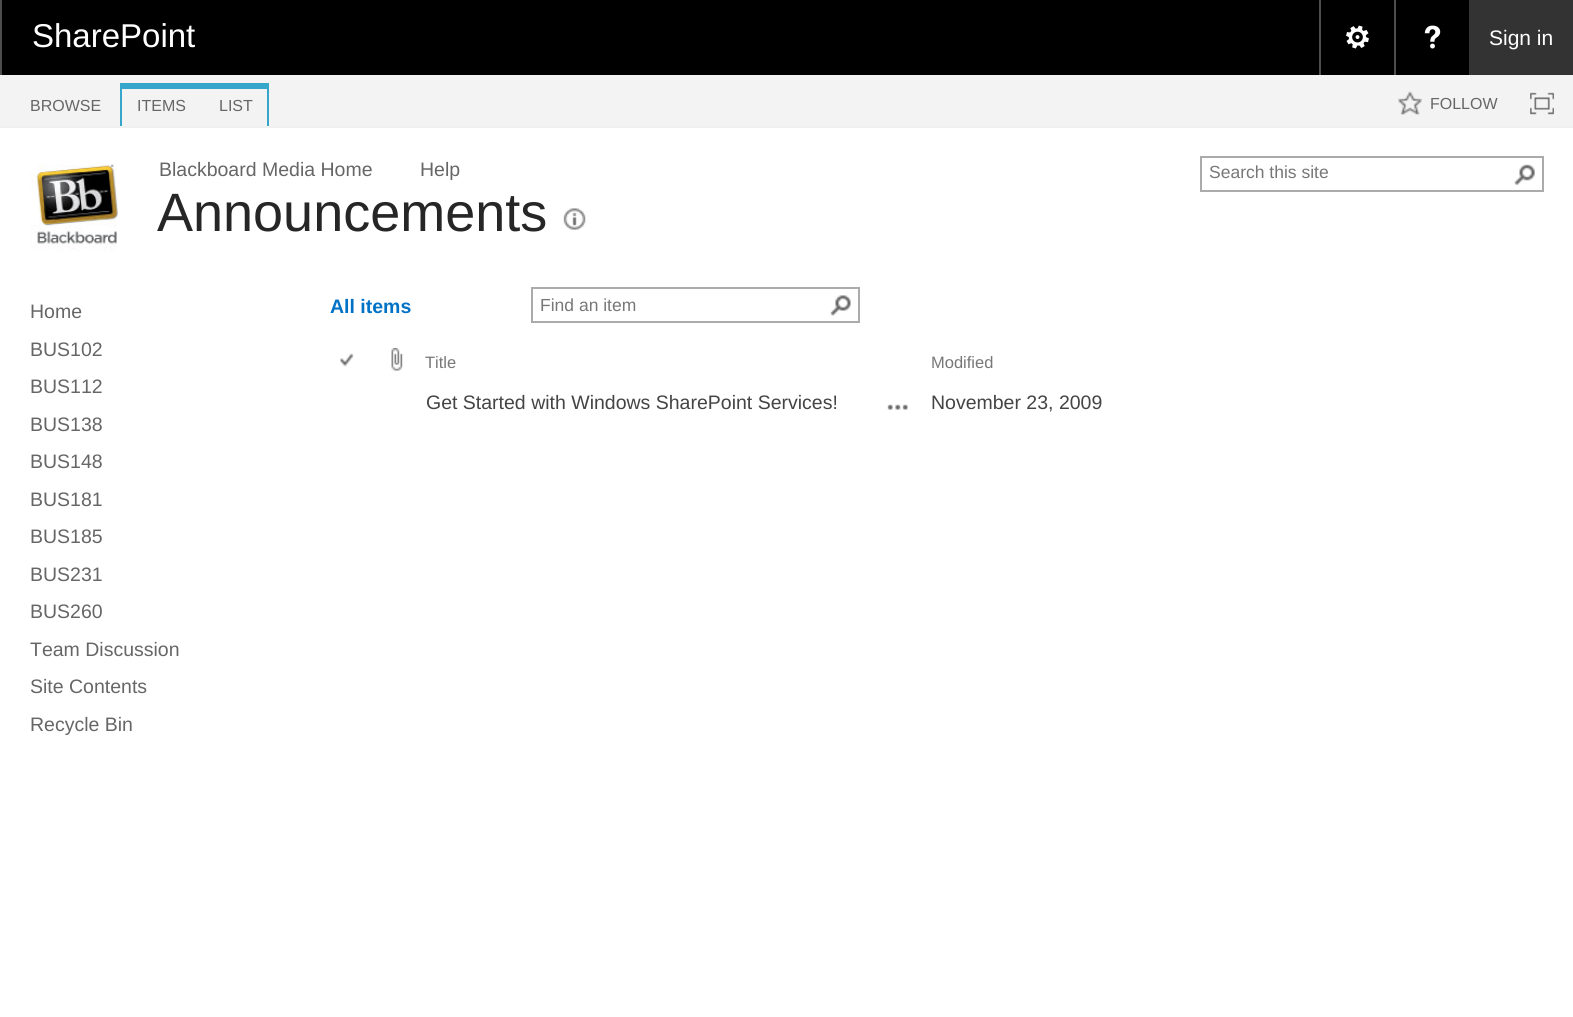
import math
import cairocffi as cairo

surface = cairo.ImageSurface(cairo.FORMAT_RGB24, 1573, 1017)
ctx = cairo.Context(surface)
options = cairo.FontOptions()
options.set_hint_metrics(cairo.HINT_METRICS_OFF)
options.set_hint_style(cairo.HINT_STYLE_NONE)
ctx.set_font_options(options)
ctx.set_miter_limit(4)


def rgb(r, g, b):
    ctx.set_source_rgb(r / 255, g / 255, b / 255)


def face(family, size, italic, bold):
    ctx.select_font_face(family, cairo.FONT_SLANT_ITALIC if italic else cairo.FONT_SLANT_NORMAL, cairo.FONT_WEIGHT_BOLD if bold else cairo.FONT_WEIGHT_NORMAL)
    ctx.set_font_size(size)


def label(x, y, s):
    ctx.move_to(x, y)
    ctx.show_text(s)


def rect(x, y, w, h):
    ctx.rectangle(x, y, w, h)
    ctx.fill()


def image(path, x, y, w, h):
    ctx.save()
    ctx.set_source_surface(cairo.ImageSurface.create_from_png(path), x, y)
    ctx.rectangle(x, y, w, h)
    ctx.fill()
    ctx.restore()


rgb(255, 255, 255)
ctx.paint()
rgb(0, 0, 0)
rect(2, 0, 1467, 75)
rgb(77, 77, 77)
rect(0, 0, 2, 75)
face('Liberation Sans', 33, 0, 0)
rgb(255, 255, 255)
label(32, 47, 'SharePoint')
rgb(77, 77, 77)
rect(1319, 0, 2, 75)
image('image0.png', 1346, 25, 23, 24)
rect(1394, 0, 2, 75)
image('image1.png', 1424, 25, 17, 24)
rgb(51, 51, 51)
rect(1469, 0, 104, 75)
face('Liberation Sans', 21, 0, 0)
rgb(255, 255, 255)
label(1489, 45, 'Sign in')
rgb(243, 243, 243)
rect(0, 75, 1573, 51)
rgb(240, 240, 240)
rect(0, 126, 1573, 2)
face('Liberation Sans', 16, 0, 0)
rgb(102, 102, 102)
label(30, 111, 'BROWSE')
rgb(54, 167, 202)
rect(120, 83, 149, 6)
rect(120, 89, 2, 37)
rgb(102, 102, 102)
label(137, 111, 'ITEMS')
rgb(54, 167, 202)
rect(267, 89, 2, 37)
rgb(102, 102, 102)
label(219, 111, 'LIST')
image('image2.png', 1398, 91, 24, 24)
label(1430, 109, 'FOLLOW')
image('image3.png', 1530, 92, 24, 23)
image('image4.png', 30, 164, 88, 87)
face('Liberation Sans', 19.5, 0, 0)
label(159, 176, 'Blackboard Media Home')
label(420, 176, 'Help')
face('Liberation Sans', 54, 0, 0)
rgb(38, 38, 38)
label(157, 231, 'Announcements')
image('image5.png', 563, 208, 23, 22)
ctx.rectangle(1201, 157, 342, 34)
rgb(171, 171, 171)
ctx.stroke()
face('Liberation Sans', 17.5, 0, 0)
rgb(119, 119, 119)
label(1209, 178, 'Search this site')
image('image6.png', 1514, 164, 21, 22)
face('Liberation Sans', 19.5, 0, 0)
rgb(102, 102, 102)
label(30, 318, 'Home')
label(30, 356, 'BUS102')
label(30, 393, 'BUS112')
label(30, 431, 'BUS138')
label(30, 468, 'BUS148')
label(30, 506, 'BUS181')
label(30, 543, 'BUS185')
label(30, 581, 'BUS231')
label(30, 618, 'BUS260')
label(30, 656, 'Team Discussion')
label(30, 693, 'Site Contents')
label(30, 731, 'Recycle Bin')
face('Liberation Sans', 19.5, 0, 1)
rgb(0, 114, 198)
label(330, 313, 'All items')
ctx.rectangle(532, 288, 327, 34)
rgb(171, 171, 171)
ctx.stroke()
face('Liberation Sans', 17.5, 0, 0)
rgb(119, 119, 119)
label(540, 311, 'Find an item')
image('image7.png', 830, 295, 21, 21)
image('image8.png', 340, 353, 14, 14)
image('image9.png', 391, 348, 12, 23)
face('Liberation Sans', 16.5, 0, 0)
label(425, 368, 'Title')
label(931, 368, 'Modified')
face('Liberation Sans', 19.5, 0, 0)
rgb(68, 68, 68)
label(426, 409, 'Get Started with Windows SharePoint Services!')
image('image10.png', 887, 404, 21, 6)
label(931, 409, 'November 23, 2009')
surface.write_to_png('render.png')
